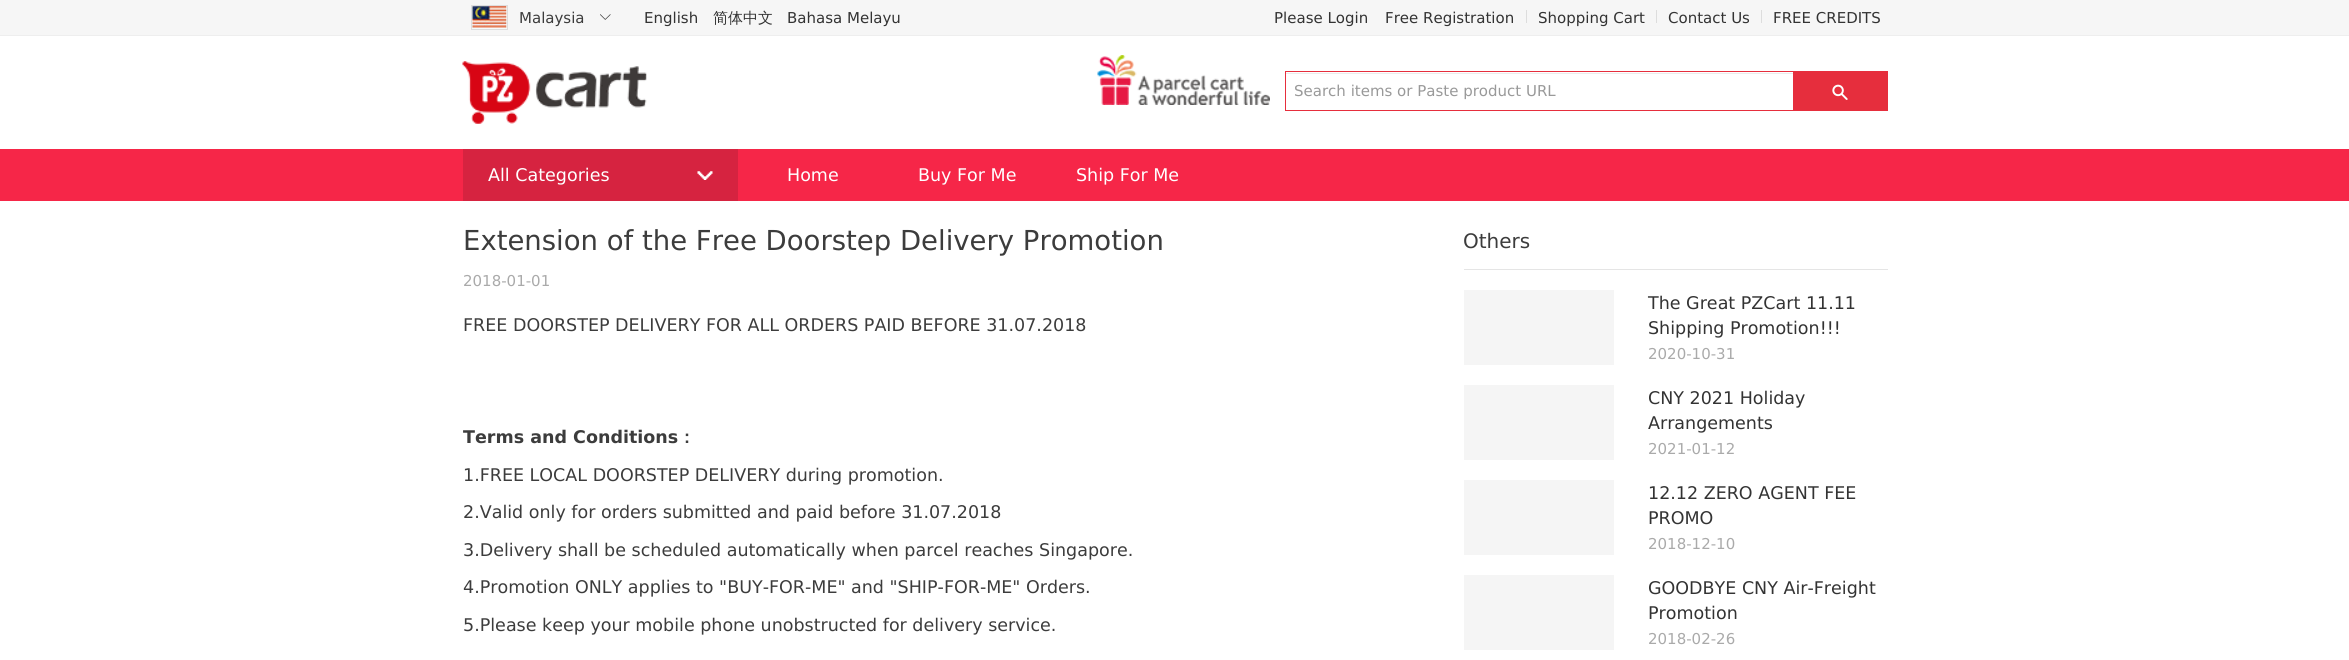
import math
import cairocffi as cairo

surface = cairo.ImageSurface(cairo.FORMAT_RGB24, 2349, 660)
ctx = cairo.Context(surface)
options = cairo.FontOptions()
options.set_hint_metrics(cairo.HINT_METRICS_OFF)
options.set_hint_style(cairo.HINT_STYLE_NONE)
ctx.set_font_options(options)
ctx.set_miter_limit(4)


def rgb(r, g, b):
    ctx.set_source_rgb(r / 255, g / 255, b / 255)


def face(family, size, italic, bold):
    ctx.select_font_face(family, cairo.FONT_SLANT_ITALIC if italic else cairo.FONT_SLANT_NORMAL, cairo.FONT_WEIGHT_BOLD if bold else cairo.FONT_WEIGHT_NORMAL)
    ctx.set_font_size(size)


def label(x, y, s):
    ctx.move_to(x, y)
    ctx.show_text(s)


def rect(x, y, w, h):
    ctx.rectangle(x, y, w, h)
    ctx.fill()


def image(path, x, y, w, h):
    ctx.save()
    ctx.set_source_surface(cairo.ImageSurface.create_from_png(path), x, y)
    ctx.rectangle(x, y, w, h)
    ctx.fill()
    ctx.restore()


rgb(255, 255, 255)
ctx.paint()
rgb(246, 246, 246)
rect(0, 0, 2349, 35)
rgb(238, 238, 238)
rect(0, 35, 2349, 1)
ctx.rectangle(471.5, 5.5, 36, 24)
rgb(221, 221, 221)
ctx.set_line_width(1)
ctx.stroke()
image('image0.png', 472, 6, 35, 23)
face('DejaVu Sans', 15, 0, 0)
rgb(60, 60, 60)
label(519, 23, 'Malaysia')
image('image1.png', 600, 14, 11, 6)
rgb(51, 51, 51)
label(644, 23, 'English')
face('WenQuanYi Zen Hei Medium', 15, 0, 0)
label(713, 23, '简体中文')
face('DejaVu Sans', 15, 0, 0)
label(787, 23, 'Bahasa Melayu')
label(1274, 23, 'Please Login')
label(1385, 23, 'Free Registration')
rgb(221, 221, 221)
rect(1526, 10, 1, 13)
rgb(51, 51, 51)
label(1538, 23, 'Shopping Cart')
rgb(221, 221, 221)
rect(1656, 10, 1, 13)
rgb(51, 51, 51)
label(1668, 23, 'Contact Us')
rgb(221, 221, 221)
rect(1761, 10, 1, 13)
rgb(51, 51, 51)
label(1773, 23, 'FREE CREDITS')
image('image2.png', 462, 61, 185, 63)
image('image3.png', 1097, 55, 173, 50)
rgb(236, 236, 236)
rect(1286, 73, 507, 1)
ctx.rectangle(1285.5, 71.5, 508, 39)
rgb(230, 46, 61)
ctx.stroke()
rgb(153, 153, 153)
label(1294, 96, 'Search items or Paste product URL')
rgb(230, 46, 61)
rect(1794, 71, 94, 40)
image('image4.png', 1832, 84, 16, 16)
rgb(246, 38, 72)
rect(0, 149, 2349, 52)
rgb(214, 35, 64)
rect(463, 149, 275, 52)
face('DejaVu Sans', 17.5, 0, 0)
rgb(255, 255, 255)
label(488, 181, 'All Categories')
image('image5.png', 697, 171, 16, 9)
label(787, 181, 'Home')
label(918, 181, 'Buy For Me')
label(1076, 181, 'Ship For Me')
face('DejaVu Sans', 27.5, 0, 0)
rgb(60, 60, 60)
label(463, 250, 'Extension of the Free Doorstep Delivery Promotion')
face('DejaVu Sans', 15, 0, 0)
rgb(170, 170, 170)
label(463, 286, '2018-01-01')
face('DejaVu Sans', 17.5, 0, 0)
rgb(60, 60, 60)
label(463, 331, 'FREE DOORSTEP DELIVERY FOR ALL ORDERS PAID BEFORE 31.07.2018')
face('DejaVu Sans', 17.5, 0, 1)
label(463, 443, 'Terms and Conditions')
face('WenQuanYi Zen Hei', 17.5, 0, 1)
label(678, 443, '：')
face('DejaVu Sans', 17.5, 0, 0)
label(463, 481, '1.FREE LOCAL DOORSTEP DELIVERY during promotion.')
label(463, 518, '2.Valid only for orders submitted and paid before 31.07.2018')
label(463, 556, '3.Delivery shall be scheduled automatically when parcel reaches Singapore.')
label(463, 593, '4.Promotion ONLY applies to "BUY-FOR-ME" and "SHIP-FOR-ME" Orders.')
label(463, 631, '5.Please keep your mobile phone unobstructed for delivery service.')
face('DejaVu Sans', 20, 0, 0)
label(1463, 248, 'Others')
rgb(229, 229, 229)
rect(1464, 269, 424, 1)
rgb(245, 245, 245)
rect(1464, 290, 150, 75)
face('DejaVu Sans', 17.5, 0, 0)
rgb(51, 51, 51)
label(1648, 309, 'The Great PZCart 11.11')
label(1648, 334, 'Shipping Promotion!!!')
face('DejaVu Sans', 15, 0, 0)
rgb(170, 170, 170)
label(1648, 359, '2020-10-31')
rgb(245, 245, 245)
rect(1464, 385, 150, 75)
face('DejaVu Sans', 17.5, 0, 0)
rgb(51, 51, 51)
label(1648, 404, 'CNY 2021 Holiday')
label(1648, 429, 'Arrangements')
face('DejaVu Sans', 15, 0, 0)
rgb(170, 170, 170)
label(1648, 454, '2021-01-12')
rgb(245, 245, 245)
rect(1464, 480, 150, 75)
face('DejaVu Sans', 17.5, 0, 0)
rgb(51, 51, 51)
label(1648, 499, '12.12 ZERO AGENT FEE')
label(1648, 524, 'PROMO')
face('DejaVu Sans', 15, 0, 0)
rgb(170, 170, 170)
label(1648, 549, '2018-12-10')
rgb(245, 245, 245)
rect(1464, 575, 150, 75)
face('DejaVu Sans', 17.5, 0, 0)
rgb(51, 51, 51)
label(1648, 594, 'GOODBYE CNY Air-Freight')
label(1648, 619, 'Promotion')
face('DejaVu Sans', 15, 0, 0)
rgb(170, 170, 170)
label(1648, 644, '2018-02-26')
surface.write_to_png('render.png')
